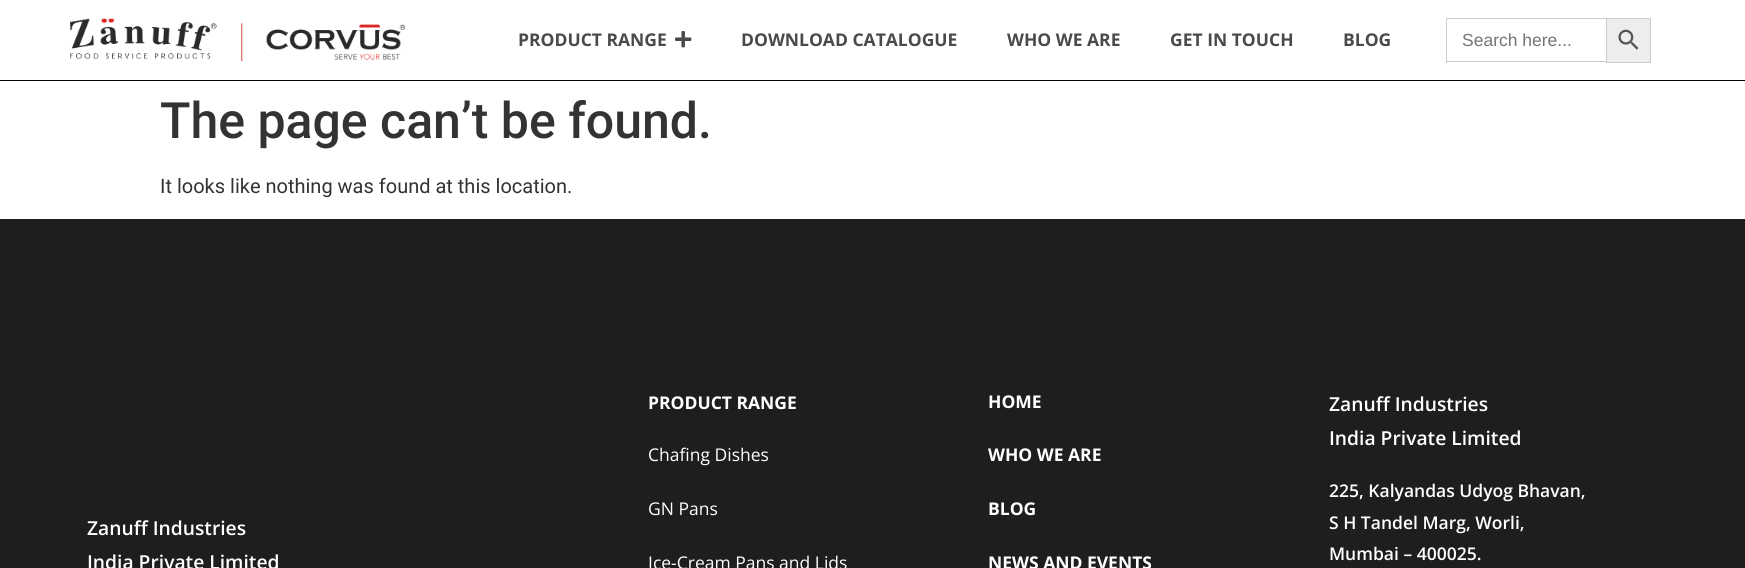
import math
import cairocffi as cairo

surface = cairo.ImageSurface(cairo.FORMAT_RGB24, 1745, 568)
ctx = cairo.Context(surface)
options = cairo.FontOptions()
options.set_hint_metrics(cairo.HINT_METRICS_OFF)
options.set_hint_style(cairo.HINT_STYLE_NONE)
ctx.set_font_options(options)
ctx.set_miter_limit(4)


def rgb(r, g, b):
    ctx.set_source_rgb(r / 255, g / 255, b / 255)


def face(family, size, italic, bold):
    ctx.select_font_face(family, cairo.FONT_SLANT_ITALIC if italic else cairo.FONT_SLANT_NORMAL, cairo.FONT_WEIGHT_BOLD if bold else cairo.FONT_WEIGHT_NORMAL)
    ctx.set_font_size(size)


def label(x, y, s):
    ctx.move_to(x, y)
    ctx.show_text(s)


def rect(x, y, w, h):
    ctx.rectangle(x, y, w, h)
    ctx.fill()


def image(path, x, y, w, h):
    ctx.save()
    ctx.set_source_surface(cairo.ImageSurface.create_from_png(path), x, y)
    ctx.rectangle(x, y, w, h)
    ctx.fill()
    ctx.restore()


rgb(255, 255, 255)
ctx.paint()
rgb(0, 0, 0)
rect(0, 80, 1745, 1)
image('image0.png', 70, 18, 335, 44)
face('Open Sans', 17.5, 0, 1)
rgb(74, 74, 74)
label(518, 46, 'PRODUCT RANGE')
image('image1.png', 675, 31, 17, 17)
label(741, 46, 'DOWNLOAD CATALOGUE')
label(1007, 46, 'WHO WE ARE')
label(1170, 46, 'GET IN TOUCH')
label(1343, 46, 'BLOG')
rgb(204, 204, 204)
rect(1446, 18, 160, 1)
rect(1446, 61, 160, 1)
rect(1446, 18, 1, 45)
face('Liberation Sans', 17.5, 0, 0)
rgb(117, 117, 117)
label(1462, 46, 'Search here...')
rgb(237, 237, 237)
ctx.rectangle(1606.5, 18.5, 44, 44)
ctx.fill_preserve()
rgb(204, 204, 204)
ctx.set_line_width(1)
ctx.stroke()
image('image2.png', 1618, 29, 21, 21)
face('Roboto Medium', 50, 0, 0)
rgb(51, 51, 51)
label(160, 138, 'The page can’t be found.')
face('Roboto', 20, 0, 0)
label(160, 193, 'It looks like nothing was found at this location.')
rgb(30, 30, 30)
rect(0, 219, 1745, 349)
face('Open Sans SemiBold', 19.25, 0, 0)
rgb(255, 255, 255)
label(87, 535, 'Zanuff Industries')
label(87, 569, 'India Private Limited')
face('Open Sans', 17.5, 0, 1)
label(648, 409, 'PRODUCT RANGE')
face('Open Sans', 17.5, 0, 0)
label(648, 461, 'Chafing Dishes')
label(648, 515, 'GN Pans')
label(648, 569, 'Ice-Cream Pans and Lids')
face('Open Sans', 17.5, 0, 1)
label(988, 408, 'HOME')
label(988, 461, 'WHO WE ARE')
label(988, 515, 'BLOG')
label(988, 569, 'NEWS AND EVENTS')
face('Open Sans SemiBold', 19.25, 0, 0)
label(1329, 411, 'Zanuff Industries')
label(1329, 445, 'India Private Limited')
face('Open Sans SemiBold', 17.5, 0, 0)
label(1329, 497, '225, Kalyandas Udyog Bhavan,')
label(1329, 529, 'S H Tandel Marg, Worli,')
label(1329, 560, 'Mumbai – 400025.')
surface.write_to_png('render.png')
